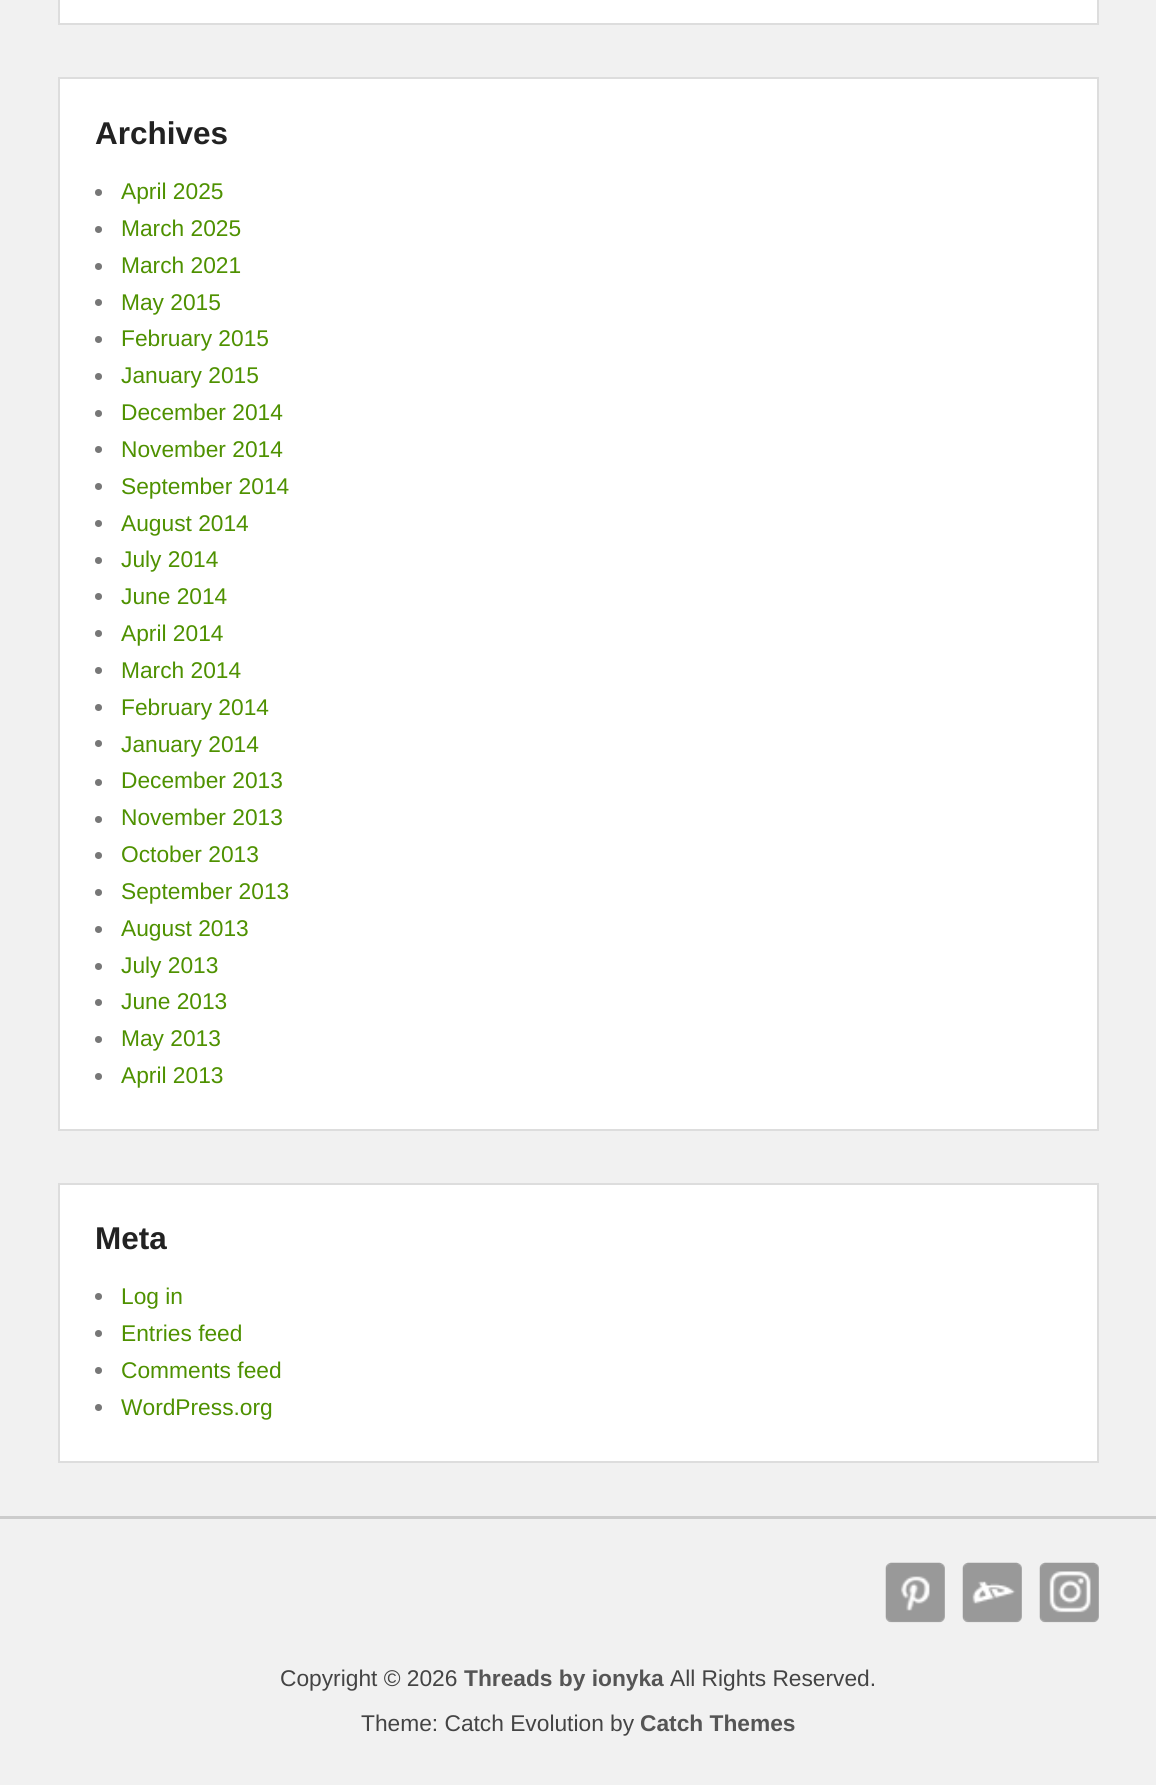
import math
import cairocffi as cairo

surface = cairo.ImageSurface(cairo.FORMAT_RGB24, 1156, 1785)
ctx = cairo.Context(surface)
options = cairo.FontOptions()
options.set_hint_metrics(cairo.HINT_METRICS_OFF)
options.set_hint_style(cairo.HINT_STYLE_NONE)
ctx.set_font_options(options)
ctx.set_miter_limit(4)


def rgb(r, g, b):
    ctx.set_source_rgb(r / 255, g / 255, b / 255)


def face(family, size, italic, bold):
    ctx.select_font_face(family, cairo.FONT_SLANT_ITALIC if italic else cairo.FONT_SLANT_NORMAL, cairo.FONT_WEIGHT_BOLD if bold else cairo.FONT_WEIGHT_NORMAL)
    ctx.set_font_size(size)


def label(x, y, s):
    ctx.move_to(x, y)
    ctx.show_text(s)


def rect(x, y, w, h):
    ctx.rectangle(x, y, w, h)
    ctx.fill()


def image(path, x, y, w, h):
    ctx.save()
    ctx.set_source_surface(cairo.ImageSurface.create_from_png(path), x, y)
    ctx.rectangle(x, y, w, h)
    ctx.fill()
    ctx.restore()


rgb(241, 241, 241)
ctx.paint()
rgb(255, 255, 255)
ctx.rectangle(59, -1, 1039, 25)
ctx.fill_preserve()
rgb(221, 221, 221)
ctx.stroke()
rgb(255, 255, 255)
ctx.rectangle(59, 78, 1039, 1052)
ctx.fill_preserve()
rgb(221, 221, 221)
ctx.stroke()
face('Liberation Sans', 31.5, 0, 1)
rgb(34, 34, 34)
label(95, 144, 'Archives')
rgb(119, 119, 119)
ctx.new_path()
ctx.arc(98.5, 192.5, 3.5, 0, 2 * math.pi)
ctx.fill()
face('Liberation Sans', 22.75, 0, 0)
rgb(78, 145, 0)
label(121, 199, 'April 2025')
rgb(119, 119, 119)
ctx.new_path()
ctx.arc(98.5, 229.5, 3.5, 0, 2 * math.pi)
ctx.fill()
rgb(78, 145, 0)
label(121, 236, 'March 2025')
rgb(119, 119, 119)
ctx.new_path()
ctx.arc(98.5, 266.5, 3.5, 0, 2 * math.pi)
ctx.fill()
rgb(78, 145, 0)
label(121, 273, 'March 2021')
rgb(119, 119, 119)
ctx.new_path()
ctx.arc(98.5, 302.5, 3.5, 0, 2 * math.pi)
ctx.fill()
rgb(78, 145, 0)
label(121, 310, 'May 2015')
rgb(119, 119, 119)
ctx.new_path()
ctx.arc(98.5, 339.5, 3.5, 0, 2 * math.pi)
ctx.fill()
rgb(78, 145, 0)
label(121, 346, 'February 2015')
rgb(119, 119, 119)
ctx.new_path()
ctx.arc(98.5, 376.5, 3.5, 0, 2 * math.pi)
ctx.fill()
rgb(78, 145, 0)
label(121, 383, 'January 2015')
rgb(119, 119, 119)
ctx.new_path()
ctx.arc(98.5, 413.5, 3.5, 0, 2 * math.pi)
ctx.fill()
rgb(78, 145, 0)
label(121, 420, 'December 2014')
rgb(119, 119, 119)
ctx.new_path()
ctx.arc(98.5, 449.5, 3.5, 0, 2 * math.pi)
ctx.fill()
rgb(78, 145, 0)
label(121, 457, 'November 2014')
rgb(119, 119, 119)
ctx.new_path()
ctx.arc(98.5, 486.5, 3.5, 0, 2 * math.pi)
ctx.fill()
rgb(78, 145, 0)
label(121, 494, 'September 2014')
rgb(119, 119, 119)
ctx.new_path()
ctx.arc(98.5, 523.5, 3.5, 0, 2 * math.pi)
ctx.fill()
rgb(78, 145, 0)
label(121, 531, 'August 2014')
rgb(119, 119, 119)
ctx.new_path()
ctx.arc(98.5, 560.5, 3.5, 0, 2 * math.pi)
ctx.fill()
rgb(78, 145, 0)
label(121, 567, 'July 2014')
rgb(119, 119, 119)
ctx.new_path()
ctx.arc(98.5, 596.5, 3.5, 0, 2 * math.pi)
ctx.fill()
rgb(78, 145, 0)
label(121, 604, 'June 2014')
rgb(119, 119, 119)
ctx.new_path()
ctx.arc(98.5, 633.5, 3.5, 0, 2 * math.pi)
ctx.fill()
rgb(78, 145, 0)
label(121, 641, 'April 2014')
rgb(119, 119, 119)
ctx.new_path()
ctx.arc(98.5, 670.5, 3.5, 0, 2 * math.pi)
ctx.fill()
rgb(78, 145, 0)
label(121, 678, 'March 2014')
rgb(119, 119, 119)
ctx.new_path()
ctx.arc(98.5, 707.5, 3.5, 0, 2 * math.pi)
ctx.fill()
rgb(78, 145, 0)
label(121, 715, 'February 2014')
rgb(119, 119, 119)
ctx.new_path()
ctx.arc(98.5, 743.5, 3.5, 0, 2 * math.pi)
ctx.fill()
rgb(78, 145, 0)
label(121, 752, 'January 2014')
rgb(119, 119, 119)
ctx.new_path()
ctx.arc(98.5, 782.5, 3.5, 0, 2 * math.pi)
ctx.fill()
rgb(78, 145, 0)
label(121, 788, 'December 2013')
rgb(119, 119, 119)
ctx.new_path()
ctx.arc(98.5, 819.5, 3.5, 0, 2 * math.pi)
ctx.fill()
rgb(78, 145, 0)
label(121, 825, 'November 2013')
rgb(119, 119, 119)
ctx.new_path()
ctx.arc(98.5, 855.5, 3.5, 0, 2 * math.pi)
ctx.fill()
rgb(78, 145, 0)
label(121, 862, 'October 2013')
rgb(119, 119, 119)
ctx.new_path()
ctx.arc(98.5, 892.5, 3.5, 0, 2 * math.pi)
ctx.fill()
rgb(78, 145, 0)
label(121, 899, 'September 2013')
rgb(119, 119, 119)
ctx.new_path()
ctx.arc(98.5, 929.5, 3.5, 0, 2 * math.pi)
ctx.fill()
rgb(78, 145, 0)
label(121, 936, 'August 2013')
rgb(119, 119, 119)
ctx.new_path()
ctx.arc(98.5, 966.5, 3.5, 0, 2 * math.pi)
ctx.fill()
rgb(78, 145, 0)
label(121, 973, 'July 2013')
rgb(119, 119, 119)
ctx.new_path()
ctx.arc(98.5, 1002.5, 3.5, 0, 2 * math.pi)
ctx.fill()
rgb(78, 145, 0)
label(121, 1009, 'June 2013')
rgb(119, 119, 119)
ctx.new_path()
ctx.arc(98.5, 1039.5, 3.5, 0, 2 * math.pi)
ctx.fill()
rgb(78, 145, 0)
label(121, 1046, 'May 2013')
rgb(119, 119, 119)
ctx.new_path()
ctx.arc(98.5, 1076.5, 3.5, 0, 2 * math.pi)
ctx.fill()
rgb(78, 145, 0)
label(121, 1083, 'April 2013')
rgb(255, 255, 255)
ctx.rectangle(59, 1184, 1039, 278)
ctx.fill_preserve()
rgb(221, 221, 221)
ctx.stroke()
face('Liberation Sans', 31.5, 0, 1)
rgb(34, 34, 34)
label(95, 1249, 'Meta')
rgb(119, 119, 119)
ctx.new_path()
ctx.arc(98.5, 1296.5, 3.5, 0, 2 * math.pi)
ctx.fill()
face('Liberation Sans', 22.75, 0, 0)
rgb(78, 145, 0)
label(121, 1304, 'Log in')
rgb(119, 119, 119)
ctx.new_path()
ctx.arc(98.5, 1333.5, 3.5, 0, 2 * math.pi)
ctx.fill()
rgb(78, 145, 0)
label(121, 1341, 'Entries feed')
rgb(119, 119, 119)
ctx.new_path()
ctx.arc(98.5, 1370.5, 3.5, 0, 2 * math.pi)
ctx.fill()
rgb(78, 145, 0)
label(121, 1378, 'Comments feed')
rgb(119, 119, 119)
ctx.new_path()
ctx.arc(98.5, 1407.5, 3.5, 0, 2 * math.pi)
ctx.fill()
rgb(78, 145, 0)
label(121, 1415, 'WordPress.org')
rgb(204, 204, 204)
rect(0, 1516, 1156, 3)
image('image0.png', 885, 1562, 60, 61)
image('image1.png', 962, 1562, 60, 61)
image('image2.png', 1039, 1562, 60, 61)
rgb(68, 68, 68)
label(280, 1686, 'Copyright © 2026')
face('Liberation Sans', 22.75, 0, 1)
rgb(85, 85, 85)
label(464, 1686, 'Threads by ionyka')
face('Liberation Sans', 22.75, 0, 0)
rgb(68, 68, 68)
label(670, 1686, 'All Rights Reserved.')
label(361, 1731, 'Theme: Catch Evolution by')
face('Liberation Sans', 22.75, 0, 1)
rgb(85, 85, 85)
label(640, 1731, 'Catch Themes')
surface.write_to_png('render.png')
